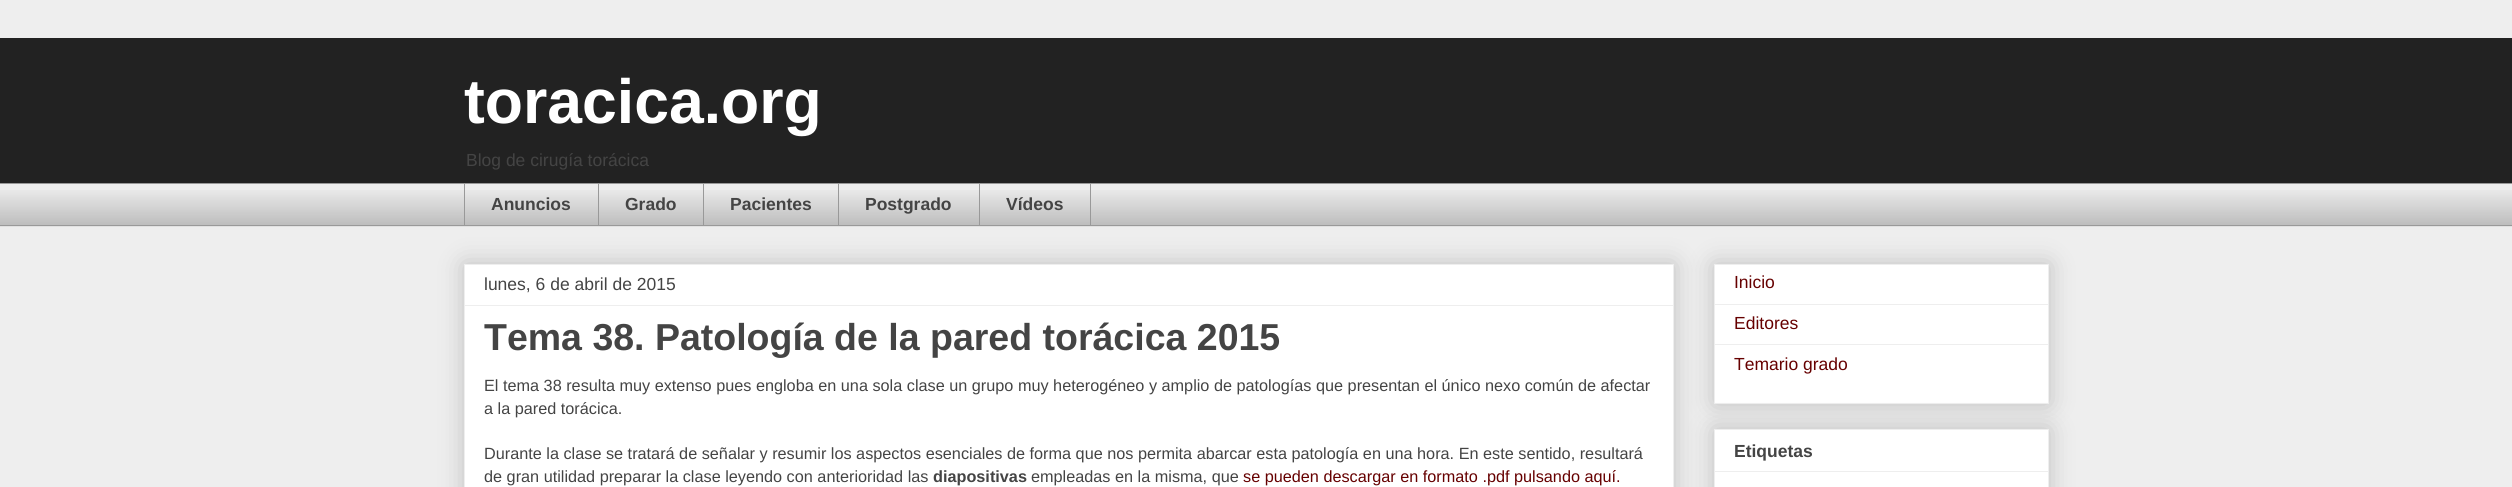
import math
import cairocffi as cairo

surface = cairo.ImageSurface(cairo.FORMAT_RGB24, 2512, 487)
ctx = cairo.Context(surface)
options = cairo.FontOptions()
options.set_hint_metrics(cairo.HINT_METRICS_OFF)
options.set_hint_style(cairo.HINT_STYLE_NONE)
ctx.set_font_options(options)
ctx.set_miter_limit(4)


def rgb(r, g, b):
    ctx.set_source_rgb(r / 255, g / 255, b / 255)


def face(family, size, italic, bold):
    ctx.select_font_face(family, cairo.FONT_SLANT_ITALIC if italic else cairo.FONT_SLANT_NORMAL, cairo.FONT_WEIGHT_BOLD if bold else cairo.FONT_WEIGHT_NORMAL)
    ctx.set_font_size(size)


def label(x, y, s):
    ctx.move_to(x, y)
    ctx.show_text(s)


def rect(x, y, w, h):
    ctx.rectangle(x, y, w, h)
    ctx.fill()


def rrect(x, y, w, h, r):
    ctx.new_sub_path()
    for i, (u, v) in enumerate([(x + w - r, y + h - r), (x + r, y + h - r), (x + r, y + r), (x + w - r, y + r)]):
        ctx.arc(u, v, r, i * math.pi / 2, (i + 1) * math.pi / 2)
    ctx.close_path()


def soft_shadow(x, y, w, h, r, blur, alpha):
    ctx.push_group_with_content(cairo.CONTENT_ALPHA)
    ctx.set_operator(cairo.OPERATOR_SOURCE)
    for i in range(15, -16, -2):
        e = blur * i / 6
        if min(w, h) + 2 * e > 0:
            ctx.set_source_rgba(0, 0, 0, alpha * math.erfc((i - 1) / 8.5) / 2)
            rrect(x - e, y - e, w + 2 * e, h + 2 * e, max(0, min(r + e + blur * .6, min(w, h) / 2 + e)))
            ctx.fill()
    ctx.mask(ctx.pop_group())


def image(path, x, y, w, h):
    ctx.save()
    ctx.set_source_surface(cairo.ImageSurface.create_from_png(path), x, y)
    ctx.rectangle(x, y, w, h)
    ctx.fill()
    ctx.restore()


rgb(238, 238, 238)
ctx.paint()
rgb(34, 34, 34)
rect(0, 38, 2512, 145)
face('Liberation Sans', 62.5, 0, 1)
rgb(255, 255, 255)
label(464, 123, 'toracica.org')
face('Liberation Sans', 17.5, 0, 0)
rgb(68, 68, 68)
label(466, 166, 'Blog de cirugía torácica')
image('image0.png', 0, 190, 2512, 37)
rgb(153, 153, 153)
rect(0, 183, 2512, 1)
rect(464, 183, 1, 43)
face('Liberation Sans', 17.5, 0, 1)
rgb(68, 68, 68)
label(491, 210, 'Anuncios')
rgb(153, 153, 153)
rect(598, 183, 1, 43)
rgb(68, 68, 68)
label(625, 210, 'Grado')
rgb(153, 153, 153)
rect(703, 183, 1, 43)
rgb(68, 68, 68)
label(730, 210, 'Pacientes')
rgb(153, 153, 153)
rect(838, 183, 1, 43)
rgb(68, 68, 68)
label(865, 210, 'Postgrado')
ctx.rectangle(979.5, 183.5, 111, 42)
rgb(153, 153, 153)
ctx.set_line_width(1)
ctx.stroke()
rgb(68, 68, 68)
label(1006, 210, 'Vídeos')
rgb(153, 153, 153)
rect(0, 225, 2512, 1)
rgb(0, 0, 0)
soft_shadow(464, 264, 1210, 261, 0, 12.5, 0.2)
rgb(255, 255, 255)
ctx.rectangle(464.5, 264.5, 1209, 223)
ctx.fill_preserve()
rgb(238, 238, 238)
ctx.stroke()
face('Liberation Sans', 17.5, 0, 0)
rgb(68, 68, 68)
label(484, 290, 'lunes, 6 de abril de 2015')
rgb(238, 238, 238)
rect(465, 305, 1208, 1)
face('Liberation Sans', 37.5, 0, 1)
rgb(68, 68, 68)
label(484, 350, 'Tema 38. Patología de la pared torácica 2015')
face('Liberation Sans', 16.25, 0, 0)
label(484, 391, 'El tema 38 resulta muy extenso pues engloba en una sola clase un grupo muy heterogéneo y amplio de patologías que presentan el único nexo común de afectar')
label(484, 414, 'a la pared torácica.')
label(484, 459, 'Durante la clase se tratará de señalar y resumir los aspectos esenciales de forma que nos permita abarcar esta patología en una hora. En este sentido, resultará')
label(484, 482, 'de gran utilidad preparar la clase leyendo con anterioridad las')
face('Liberation Sans', 16.25, 0, 1)
label(933, 482, 'diapositivas')
face('Liberation Sans', 16.25, 0, 0)
label(1031, 482, 'empleadas en la misma, que')
rgb(102, 0, 0)
label(1243, 482, 'se pueden descargar en formato .pdf pulsando aquí.')
rgb(0, 0, 0)
soft_shadow(1714, 264, 335, 140, 0, 12.5, 0.2)
rgb(255, 255, 255)
ctx.rectangle(1714.5, 264.5, 334, 139)
ctx.fill_preserve()
rgb(238, 238, 238)
ctx.stroke()
face('Liberation Sans', 17.5, 0, 0)
rgb(102, 0, 0)
label(1734, 288, 'Inicio')
rgb(238, 238, 238)
rect(1715, 304, 333, 1)
rgb(102, 0, 0)
label(1734, 329, 'Editores')
rgb(238, 238, 238)
rect(1715, 344, 333, 1)
rgb(102, 0, 0)
label(1734, 370, 'Temario grado')
rgb(0, 0, 0)
soft_shadow(1714, 429, 335, 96, 0, 12.5, 0.2)
rgb(255, 255, 255)
ctx.rectangle(1714.5, 429.5, 334, 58)
ctx.fill_preserve()
rgb(238, 238, 238)
ctx.stroke()
face('Liberation Sans', 17.5, 0, 1)
rgb(68, 68, 68)
label(1734, 457, 'Etiquetas')
rgb(238, 238, 238)
rect(1715, 471, 333, 1)
surface.write_to_png('render.png')
